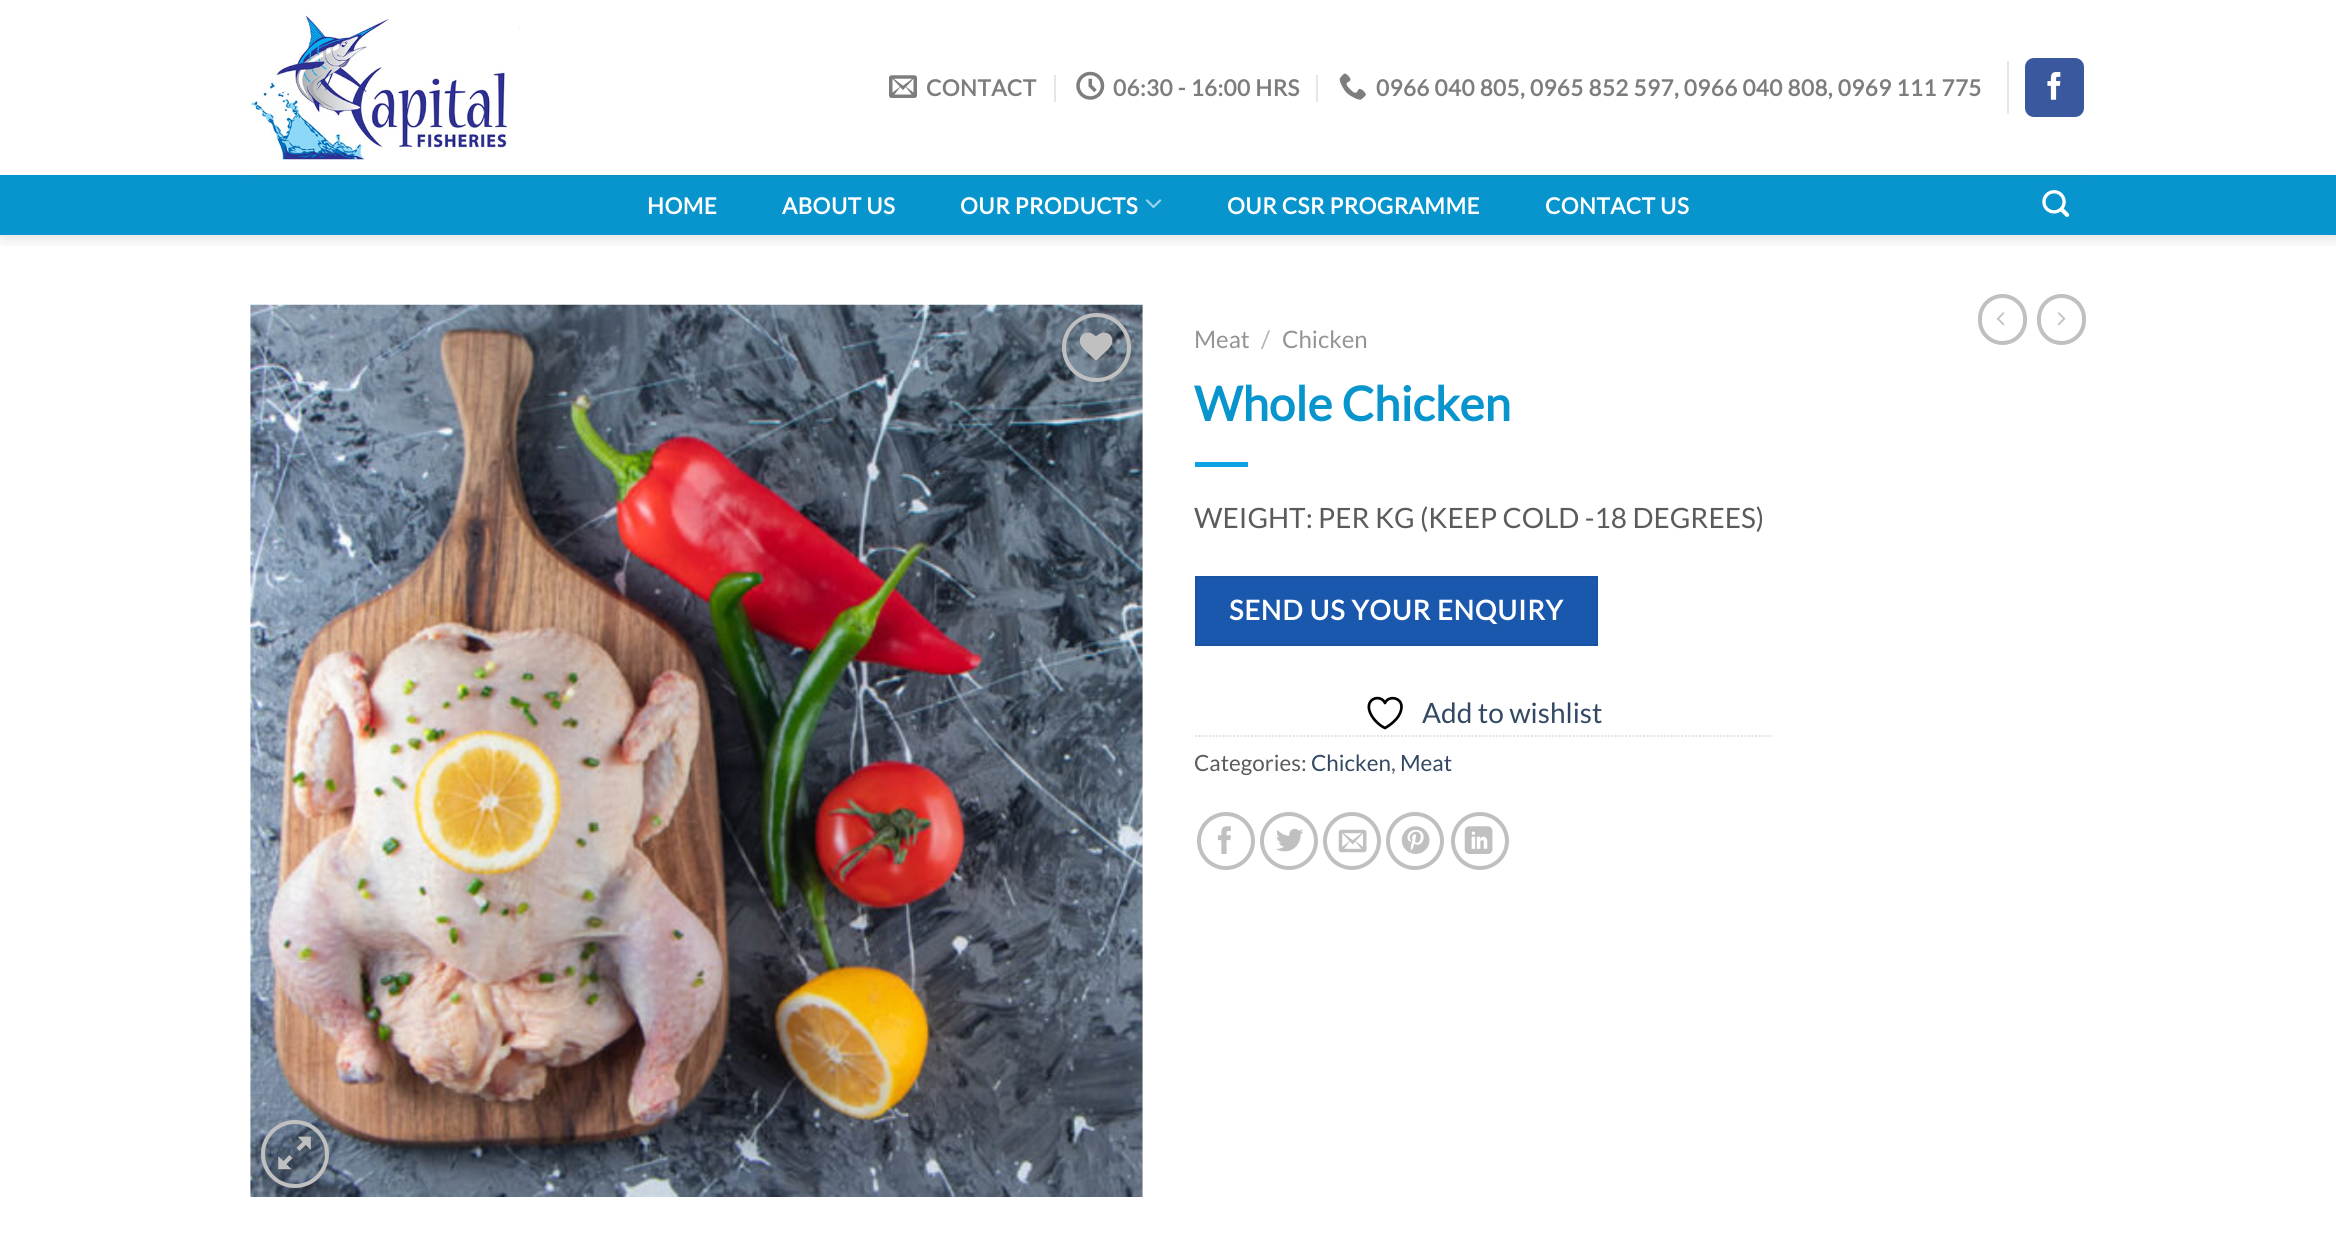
import math
import cairocffi as cairo

surface = cairo.ImageSurface(cairo.FORMAT_RGB24, 2336, 1233)
ctx = cairo.Context(surface)
options = cairo.FontOptions()
options.set_hint_metrics(cairo.HINT_METRICS_OFF)
options.set_hint_style(cairo.HINT_STYLE_NONE)
ctx.set_font_options(options)
ctx.set_miter_limit(4)


def rgb(r, g, b):
    ctx.set_source_rgb(r / 255, g / 255, b / 255)


def face(family, size, italic, bold):
    ctx.select_font_face(family, cairo.FONT_SLANT_ITALIC if italic else cairo.FONT_SLANT_NORMAL, cairo.FONT_WEIGHT_BOLD if bold else cairo.FONT_WEIGHT_NORMAL)
    ctx.set_font_size(size)


def label(x, y, s):
    ctx.move_to(x, y)
    ctx.show_text(s)


def tracked(x, y, s, letter, word):
    ctx.move_to(x, y)
    for ch in s:
        ctx.show_text(ch)
        ctx.rel_move_to(letter + word * (ch == ' '), 0)


def rect(x, y, w, h):
    ctx.rectangle(x, y, w, h)
    ctx.fill()


def rrect(x, y, w, h, r):
    ctx.new_sub_path()
    for i, (u, v) in enumerate([(x + w - r, y + h - r), (x + r, y + h - r), (x + r, y + r), (x + w - r, y + r)]):
        ctx.arc(u, v, r, i * math.pi / 2, (i + 1) * math.pi / 2)
    ctx.close_path()


def soft_shadow(x, y, w, h, r, blur, alpha):
    ctx.push_group_with_content(cairo.CONTENT_ALPHA)
    ctx.set_operator(cairo.OPERATOR_SOURCE)
    for i in range(15, -16, -2):
        e = blur * i / 6
        if min(w, h) + 2 * e > 0:
            ctx.set_source_rgba(0, 0, 0, alpha * math.erfc((i - 1) / 8.5) / 2)
            rrect(x - e, y - e, w + 2 * e, h + 2 * e, max(0, min(r + e + blur * .6, min(w, h) / 2 + e)))
            ctx.fill()
    ctx.mask(ctx.pop_group())


def image(path, x, y, w, h):
    ctx.save()
    ctx.set_source_surface(cairo.ImageSurface.create_from_png(path), x, y)
    ctx.rectangle(x, y, w, h)
    ctx.fill()
    ctx.restore()


rgb(255, 255, 255)
ctx.paint()
ctx.save()
ctx.rectangle(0, 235, 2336, 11)
ctx.clip()
rgb(0, 0, 0)
soft_shadow(2, 2, 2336, 234, 0, 9, 0.15)
ctx.restore()
image('image0.png', 250, 15, 271, 145)
image('image1.png', 889, 75, 28, 23)
face('Lato', 22.4, 0, 1)
rgb(125, 125, 125)
tracked(926, 96, 'CONTACT', 0.45, 0)
rgb(230, 230, 230)
rect(1054, 75, 2, 27)
image('image2.png', 1076, 71, 29, 29)
rgb(125, 125, 125)
tracked(1113, 96, '06:30 - 16:00 HRS', 0.45, 0)
rgb(230, 230, 230)
rect(1316, 75, 2, 27)
image('image3.png', 1339, 73, 27, 27)
rgb(125, 125, 125)
tracked(1376, 96, '0966 040 805, 0965 852 597, 0966 040 808, 0969 111 775', 0.45, 0)
rgb(230, 230, 230)
rect(2007, 61, 2, 53)
rgb(58, 88, 157)
rrect(2026, 59, 57, 57, 8)
ctx.fill_preserve()
ctx.stroke()
image('image4.png', 2047, 72, 14, 28)
rgb(8, 149, 205)
rect(0, 175, 2336, 60)
rgb(16, 143, 194)
rect(250, 175, 1838, 2)
rgb(255, 255, 255)
tracked(647, 214, 'HOME', 0.45, 0)
tracked(782, 214, 'ABOUT US', 0.45, 0)
tracked(960, 214, 'OUR PRODUCTS', 0.45, 0)
image('image5.png', 1145, 199, 17, 10)
tracked(1227, 214, 'OUR CSR PROGRAMME', 0.45, 0)
tracked(1545, 214, 'CONTACT US', 0.45, 0)
image('image6.png', 2042, 190, 28, 27)
image('image7.png', 250, 304, 893, 893)
ctx.arc(1096.5, 347.5, 32.5, 0, 2 * math.pi)
rgb(192, 192, 192)
ctx.set_line_width(4)
ctx.stroke()
image('image8.png', 1079, 332, 34, 29)
ctx.arc(295, 1154, 32, 0, 2 * math.pi)
ctx.stroke()
image('image9.png', 278, 1136, 33, 34)
face('Lato', 24, 0, 0)
rgb(148, 148, 148)
label(1194, 348, 'Meat')
rgb(178, 178, 178)
label(1261, 348, '/')
rgb(148, 148, 148)
label(1282, 348, 'Chicken')
face('Lato', 47.5, 0, 1)
rgb(8, 149, 205)
label(1194, 421, 'Whole Chicken')
rgb(14, 162, 229)
rect(1195, 462, 53, 5)
face('Lato', 28, 0, 0)
rgb(91, 91, 91)
label(1194, 528, 'WEIGHT: PER KG (KEEP COLD -18 DEGREES)')
rgb(26, 88, 173)
ctx.rectangle(1196, 577, 401, 68)
ctx.fill_preserve()
rgb(25, 84, 164)
ctx.set_line_width(2)
ctx.stroke()
face('Lato', 27.2, 0, 1)
rgb(255, 255, 255)
tracked(1229, 620, 'SEND US YOUR ENQUIRY', 0.8, 0)
ctx.new_path()
ctx.move_to(1401.5, 706.5)
ctx.curve_to(1401.5, 697.5, 1388.5, 695, 1385, 703)
ctx.curve_to(1380.5, 693, 1362, 699, 1371.5, 715.5)
ctx.curve_to(1374.5, 720.5, 1379.5, 725.5, 1385, 728)
ctx.curve_to(1385, 728, 1401.5, 719.5, 1401.5, 706.5)
ctx.close_path()
rgb(0, 0, 0)
ctx.set_line_width(2.7)
ctx.set_line_cap(cairo.LINE_CAP_ROUND)
ctx.set_line_join(cairo.LINE_JOIN_ROUND)
ctx.stroke()
face('Lato', 28, 0, 0)
rgb(51, 72, 98)
label(1422, 723, 'Add to wishlist')
ctx.new_path()
ctx.move_to(1195, 736)
ctx.line_to(1773, 736)
rgb(221, 221, 221)
ctx.set_line_width(1.8)
ctx.set_line_cap(cairo.LINE_CAP_BUTT)
ctx.set_line_join(cairo.LINE_JOIN_MITER)
ctx.set_dash([1.75, 1.75])
ctx.stroke()
face('Lato', 22.4, 0, 0)
rgb(91, 91, 91)
label(1194, 771, 'Categories:')
rgb(51, 72, 98)
label(1311, 771, 'Chicken')
rgb(91, 91, 91)
label(1391, 771, ',')
rgb(51, 72, 98)
label(1400, 771, 'Meat')
ctx.new_path()
ctx.arc(1226, 841, 27, 0, 2 * math.pi)
rgb(192, 192, 192)
ctx.set_line_width(4)
ctx.set_dash([])
ctx.stroke()
image('image10.png', 1217, 826, 14, 28)
ctx.arc(1289, 841, 27, 0, 2 * math.pi)
ctx.stroke()
image('image11.png', 1276, 828, 28, 24)
ctx.arc(1352, 841, 27, 0, 2 * math.pi)
ctx.stroke()
image('image12.png', 1338, 829, 29, 24)
ctx.arc(1415, 841, 27, 0, 2 * math.pi)
ctx.stroke()
image('image13.png', 1401, 826, 29, 28)
ctx.arc(1480, 841, 27, 0, 2 * math.pi)
ctx.stroke()
image('image14.png', 1464, 826, 29, 28)
rrect(1980, 296, 45, 47, 22.5)
ctx.stroke()
image('image15.png', 1996, 312, 9, 14)
rrect(2039, 296, 45, 47, 22.5)
ctx.stroke()
image('image16.png', 2057, 312, 9, 14)
surface.write_to_png('render.png')
